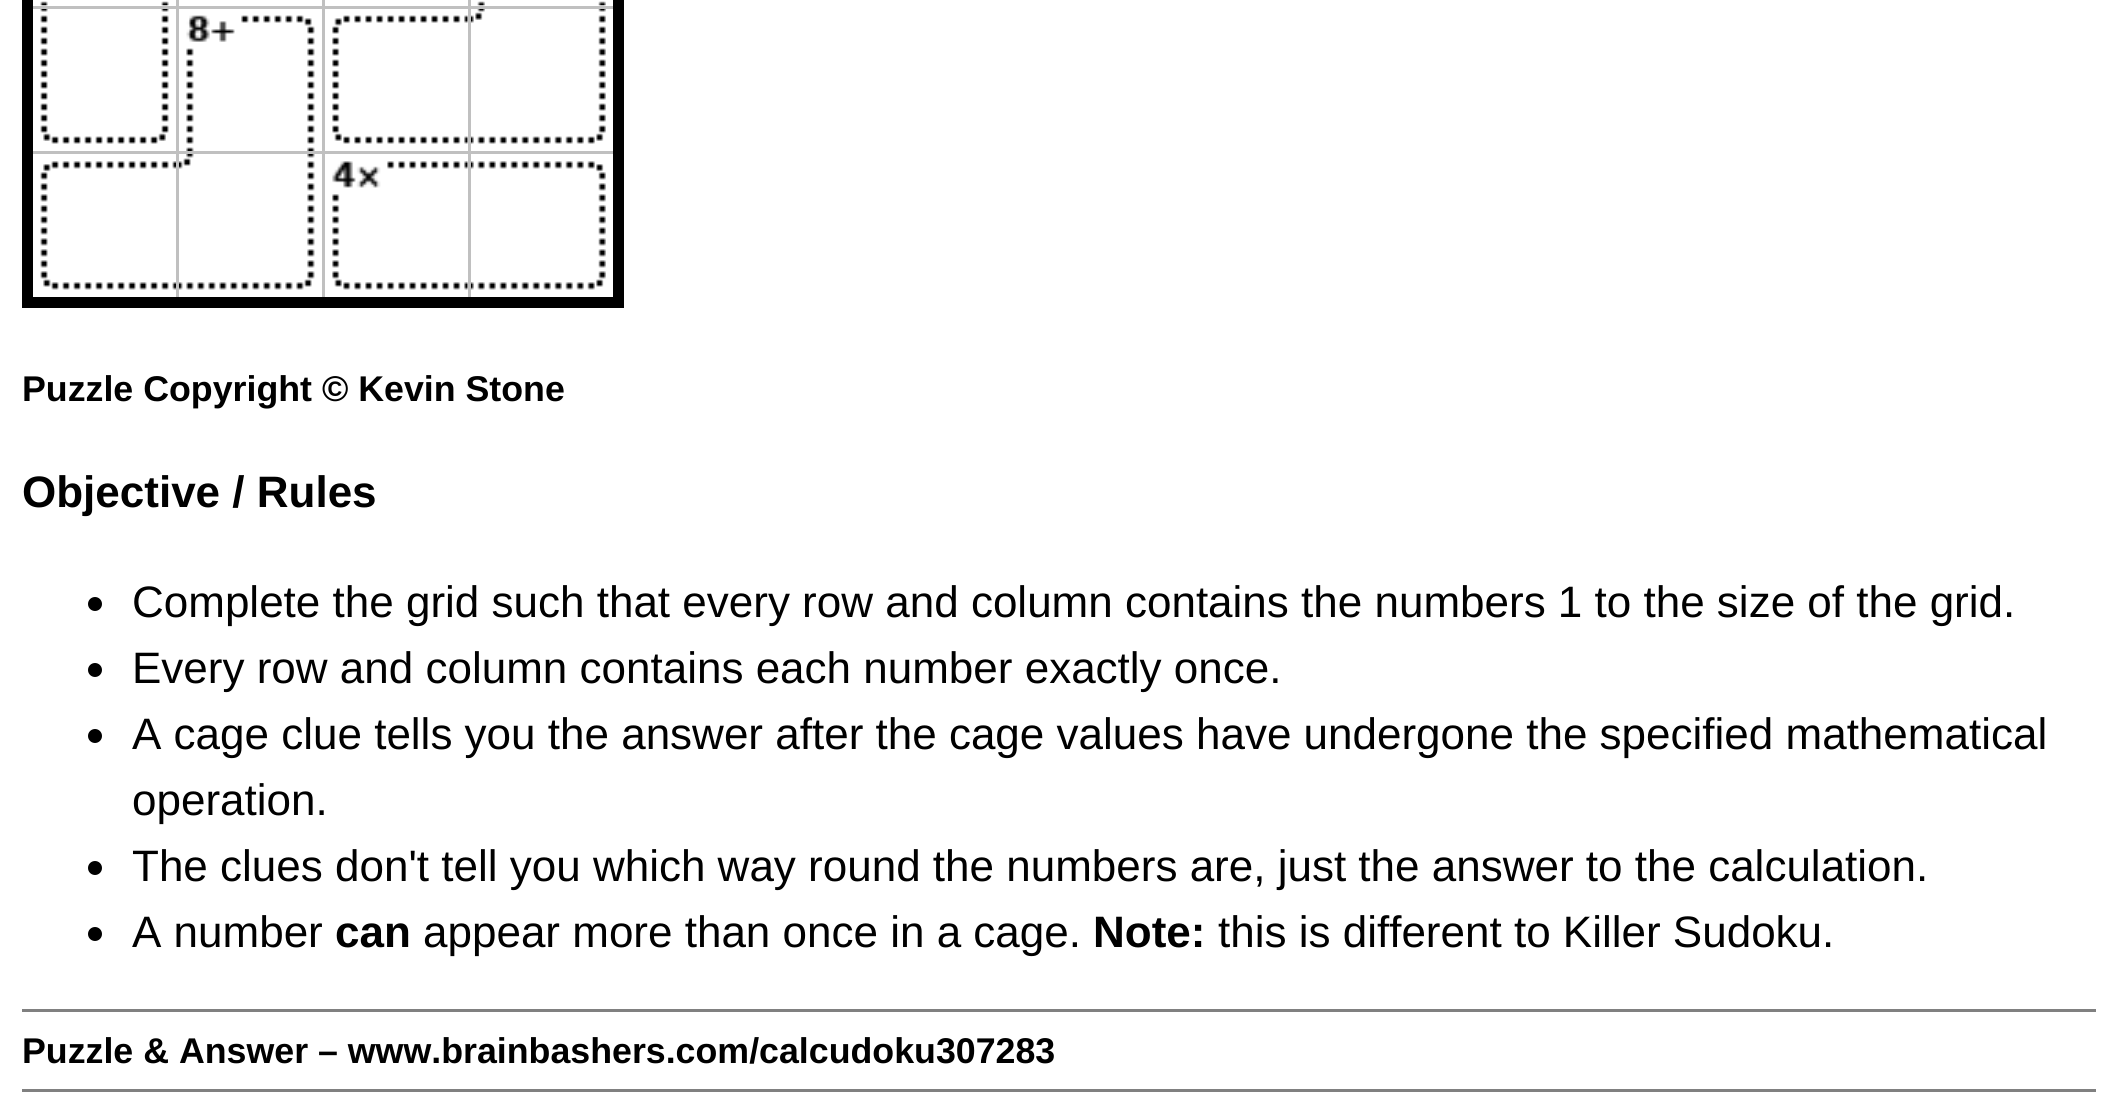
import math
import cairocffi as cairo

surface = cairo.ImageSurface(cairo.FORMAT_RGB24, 2117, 1113)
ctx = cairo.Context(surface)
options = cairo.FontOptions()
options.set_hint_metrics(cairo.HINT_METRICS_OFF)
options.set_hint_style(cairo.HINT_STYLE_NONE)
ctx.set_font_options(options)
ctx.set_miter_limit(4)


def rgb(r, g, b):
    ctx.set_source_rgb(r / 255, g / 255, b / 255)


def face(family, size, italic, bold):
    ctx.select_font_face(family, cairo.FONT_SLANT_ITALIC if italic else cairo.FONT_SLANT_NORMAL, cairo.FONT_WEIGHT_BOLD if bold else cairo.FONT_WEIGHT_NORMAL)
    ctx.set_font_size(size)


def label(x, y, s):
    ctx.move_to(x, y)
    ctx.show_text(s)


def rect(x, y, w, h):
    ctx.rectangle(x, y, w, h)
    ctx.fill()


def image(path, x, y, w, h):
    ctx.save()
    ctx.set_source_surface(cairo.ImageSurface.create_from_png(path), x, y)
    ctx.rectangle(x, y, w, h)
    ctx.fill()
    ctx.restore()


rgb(255, 255, 255)
ctx.paint()
rgb(0, 0, 0)
rect(613, 0, 11, 297)
rgb(192, 192, 192)
rect(468, 151, 145, 3)
rect(468, 151, 3, 152)
rect(322, 151, 148, 3)
rect(322, 151, 3, 152)
rect(176, 151, 149, 3)
rect(176, 151, 3, 152)
rgb(0, 0, 0)
rect(33, 297, 591, 11)
rgb(192, 192, 192)
rect(468, 6, 145, 3)
rect(468, 6, 3, 148)
rect(322, 6, 148, 3)
rect(322, 6, 3, 148)
rect(176, 6, 149, 3)
rect(28, 151, 151, 3)
rect(176, 6, 3, 148)
rect(28, 6, 151, 3)
rgb(0, 0, 0)
rect(22, 0, 11, 308)
image('image0.png', 40, 1, 129, 5)
rgb(192, 192, 192)
rect(176, 0, 3, 8)
rect(322, 0, 3, 8)
image('image1.png', 477, 1, 129, 5)
rect(468, 0, 3, 8)
image('image2.png', 40, 9, 129, 135)
image('image3.png', 186, 15, 129, 136)
image('image4.png', 332, 15, 136, 129)
image('image5.png', 471, 9, 135, 135)
image('image6.png', 40, 161, 136, 129)
image('image7.png', 179, 154, 136, 136)
image('image8.png', 332, 161, 136, 129)
image('image9.png', 471, 161, 135, 129)
face('Liberation Sans', 35.75, 0, 1)
rgb(0, 0, 0)
label(22, 401, 'Puzzle Copyright © Kevin Stone')
face('Liberation Sans', 44, 0, 1)
label(22, 507, 'Objective / Rules')
ctx.new_path()
ctx.arc(95, 604, 7, 0, 2 * math.pi)
ctx.fill()
face('Liberation Sans', 44, 0, 0)
label(132, 617, 'Complete the grid such that every row and column contains the numbers 1 to the size of the grid.')
ctx.new_path()
ctx.arc(95, 670, 7, 0, 2 * math.pi)
ctx.fill()
label(132, 683, 'Every row and column contains each number exactly once.')
ctx.new_path()
ctx.arc(95, 736, 7, 0, 2 * math.pi)
ctx.fill()
label(132, 749, 'A cage clue tells you the answer after the cage values have undergone the specified mathematical')
label(132, 815, 'operation.')
ctx.new_path()
ctx.arc(95, 868, 7, 0, 2 * math.pi)
ctx.fill()
label(132, 881, 'The clues don\'t tell you which way round the numbers are, just the answer to the calculation.')
ctx.new_path()
ctx.arc(95, 934, 7, 0, 2 * math.pi)
ctx.fill()
label(132, 947, 'A number')
face('Liberation Sans', 44, 0, 1)
label(335, 947, 'can')
face('Liberation Sans', 44, 0, 0)
label(423, 947, 'appear more than once in a cage.')
face('Liberation Sans', 44, 0, 1)
label(1093, 947, 'Note:')
face('Liberation Sans', 44, 0, 0)
label(1218, 947, 'this is different to Killer Sudoku.')
rgb(128, 128, 128)
rect(22, 1009, 2074, 3)
face('Liberation Sans', 35.75, 0, 1)
rgb(0, 0, 0)
label(22, 1063, 'Puzzle & Answer – www.brainbashers.com/calcudoku307283')
rgb(128, 128, 128)
rect(22, 1089, 2074, 3)
surface.write_to_png('render.png')
